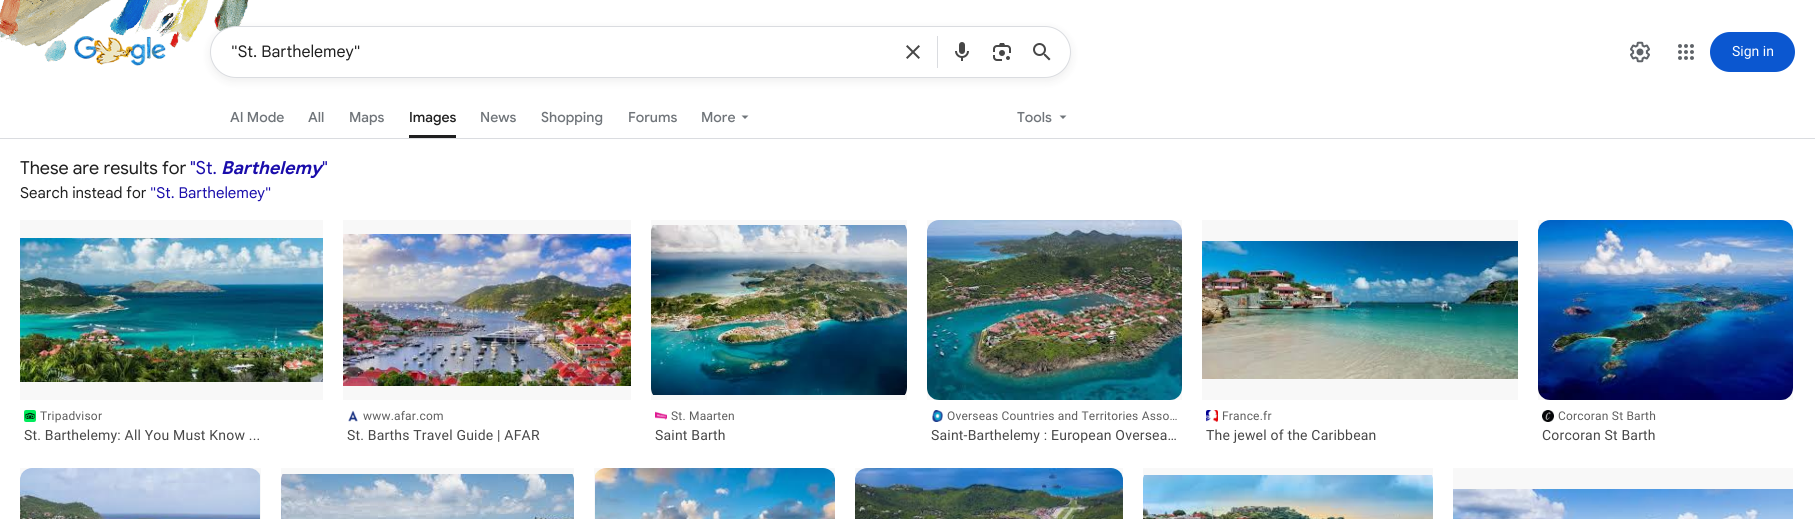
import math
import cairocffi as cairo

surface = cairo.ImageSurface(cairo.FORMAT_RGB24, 1815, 519)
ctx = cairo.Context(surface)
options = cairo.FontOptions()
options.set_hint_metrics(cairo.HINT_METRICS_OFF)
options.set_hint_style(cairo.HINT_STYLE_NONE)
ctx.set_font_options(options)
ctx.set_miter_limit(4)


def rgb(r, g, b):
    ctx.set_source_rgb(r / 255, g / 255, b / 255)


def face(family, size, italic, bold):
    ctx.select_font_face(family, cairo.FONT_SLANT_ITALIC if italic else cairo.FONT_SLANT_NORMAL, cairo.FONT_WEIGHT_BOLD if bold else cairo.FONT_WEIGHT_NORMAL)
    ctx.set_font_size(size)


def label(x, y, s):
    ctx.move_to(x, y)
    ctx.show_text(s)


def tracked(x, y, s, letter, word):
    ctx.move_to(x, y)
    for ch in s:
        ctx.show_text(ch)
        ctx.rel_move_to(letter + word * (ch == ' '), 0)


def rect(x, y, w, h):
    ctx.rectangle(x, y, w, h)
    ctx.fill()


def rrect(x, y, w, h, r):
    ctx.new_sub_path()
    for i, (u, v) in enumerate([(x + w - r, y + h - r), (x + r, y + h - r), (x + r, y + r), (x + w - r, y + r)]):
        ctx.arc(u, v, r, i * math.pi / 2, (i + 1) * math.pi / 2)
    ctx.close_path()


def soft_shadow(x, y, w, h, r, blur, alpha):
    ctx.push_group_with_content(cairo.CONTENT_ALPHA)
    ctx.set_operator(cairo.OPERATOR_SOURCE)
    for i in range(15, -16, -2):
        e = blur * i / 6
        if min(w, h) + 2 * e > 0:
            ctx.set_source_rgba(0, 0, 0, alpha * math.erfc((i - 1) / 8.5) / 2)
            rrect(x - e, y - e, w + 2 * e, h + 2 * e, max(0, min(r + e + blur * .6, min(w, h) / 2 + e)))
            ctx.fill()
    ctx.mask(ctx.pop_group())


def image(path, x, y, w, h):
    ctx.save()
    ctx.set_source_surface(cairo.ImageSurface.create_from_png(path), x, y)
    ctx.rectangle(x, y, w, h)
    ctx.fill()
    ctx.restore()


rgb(255, 255, 255)
ctx.paint()
image('image0.png', 0, 0, 249, 62)
image('image1.png', 74, 36, 92, 30)
rgb(31, 31, 31)
soft_shadow(210, 29, 861, 52, 26, 5, 0.08)
rgb(255, 255, 255)
rrect(210.5, 26.5, 860, 51, 25.5)
ctx.fill_preserve()
rgb(218, 220, 224)
ctx.set_line_width(1)
ctx.stroke()
face('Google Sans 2', 16, 0, 0)
rgb(31, 31, 31)
label(231, 57, '"St. Barthelemey"')
image('image2.png', 906, 45, 14, 14)
rgb(218, 220, 224)
rect(937, 36, 1, 32)
image('image3.png', 955, 42, 14, 19)
image('image4.png', 993, 43, 18, 18)
image('image5.png', 1033, 43, 18, 18)
image('image6.png', 1630, 41, 20, 22)
image('image7.png', 1678, 44, 16, 16)
rgb(11, 87, 208)
rrect(1710, 32, 85, 40, 20)
ctx.fill()
face('Roboto', 14, 0, 0)
rgb(255, 255, 255)
label(1732, 56, 'Sign in')
face('Google Sans Medium', 14, 0, 0)
rgb(112, 117, 122)
label(230, 122, 'AI Mode')
label(308, 122, 'All')
label(349, 122, 'Maps')
rgb(31, 31, 31)
rect(409, 135, 47, 3)
label(409, 122, 'Images')
rgb(112, 117, 122)
label(480, 122, 'News')
label(541, 122, 'Shopping')
label(628, 122, 'Forums')
label(701, 122, 'More')
ctx.new_path()
ctx.move_to(741.5, 115.5)
ctx.line_to(745, 119)
ctx.line_to(748.5, 115.5)
ctx.close_path()
ctx.fill()
label(1017, 122, 'Tools')
ctx.new_path()
ctx.move_to(1059.5, 115.5)
ctx.line_to(1063, 119)
ctx.line_to(1066.5, 115.5)
ctx.close_path()
ctx.fill()
rgb(218, 220, 224)
rect(0, 138, 1815, 1)
face('Google Sans', 18, 0, 0)
rgb(31, 31, 31)
label(20, 174, 'These are results for')
rgb(26, 13, 171)
label(190, 174, '"St.')
face('Google Sans', 18, 1, 1)
label(221, 174, 'Barthelemy')
face('Google Sans', 18, 0, 0)
label(322, 174, '"')
face('Google Sans 2', 15, 0, 0)
rgb(31, 31, 31)
label(20, 198, 'Search instead for')
rgb(26, 13, 171)
label(150, 198, '"St. Barthelemey"')
image('image8.png', 20, 238, 303, 144)
ctx.set_source_rgba(0, 0, 0, 0.03)
rect(20, 220, 303, 180)
image('image9.png', 24, 410, 12, 12)
face('Roboto', 12, 0, 0)
rgb(94, 94, 94)
tracked(40, 420, 'Tripadvisor', 0.2, 0)
face('Roboto', 14, 0, 0)
rgb(71, 71, 71)
tracked(24, 440, 'St. Barthelemy: All You Must Know ...', 0.2, 0)
image('image10.png', 343, 234, 288, 152)
ctx.set_source_rgba(0, 0, 0, 0.03)
rect(343, 220, 288, 180)
image('image11.png', 348, 410, 10, 12)
face('Roboto', 12, 0, 0)
rgb(94, 94, 94)
tracked(363, 420, 'www.afar.com', 0.2, 0)
face('Roboto', 14, 0, 0)
rgb(71, 71, 71)
tracked(347, 440, 'St. Barths Travel Guide | AFAR', 0.2, 0)
image('image12.png', 651, 225, 256, 170)
ctx.set_source_rgba(0, 0, 0, 0.03)
rect(651, 220, 256, 180)
image('image13.png', 655, 411, 12, 9)
face('Roboto', 12, 0, 0)
rgb(94, 94, 94)
tracked(671, 420, 'St. Maarten', 0.2, 0)
face('Roboto', 14, 0, 0)
rgb(71, 71, 71)
tracked(655, 440, 'Saint Barth', 0.2, 0)
image('image14.png', 927, 220, 255, 180)
ctx.set_source_rgba(0, 0, 0, 0.03)
rect(927, 220, 255, 180)
image('image15.png', 932, 410, 11, 12)
face('Roboto', 12, 0, 0)
rgb(94, 94, 94)
tracked(947, 420, 'Overseas Countries and Territories Asso…', 0.2, 0)
face('Roboto', 14, 0, 0)
rgb(71, 71, 71)
tracked(931, 440, 'Saint-Barthelemy : European Oversea…', 0.2, 0)
image('image16.png', 1202, 241, 316, 138)
ctx.set_source_rgba(0, 0, 0, 0.03)
rect(1202, 220, 316, 180)
image('image17.png', 1206, 410, 12, 12)
face('Roboto', 12, 0, 0)
rgb(94, 94, 94)
tracked(1222, 420, 'France.fr', 0.2, 0)
face('Roboto', 14, 0, 0)
rgb(71, 71, 71)
tracked(1206, 440, 'The jewel of the Caribbean', 0.2, 0)
image('image18.png', 1538, 220, 255, 180)
ctx.set_source_rgba(0, 0, 0, 0.03)
rect(1538, 220, 255, 180)
image('image19.png', 1542, 410, 12, 12)
face('Roboto', 12, 0, 0)
rgb(94, 94, 94)
tracked(1558, 420, 'Corcoran St Barth', 0.2, 0)
face('Roboto', 14, 0, 0)
rgb(71, 71, 71)
tracked(1542, 440, 'Corcoran St Barth', 0.2, 0)
image('image20.png', 20, 468, 240, 51)
ctx.set_source_rgba(0, 0, 0, 0.03)
rect(20, 468, 241, 51)
image('image21.png', 281, 474, 293, 45)
rect(281, 468, 293, 51)
image('image22.png', 595, 468, 240, 51)
rect(594, 468, 241, 51)
image('image23.png', 855, 468, 268, 51)
rect(855, 468, 268, 51)
image('image24.png', 1143, 475, 290, 44)
rect(1143, 468, 290, 51)
image('image25.png', 1453, 489, 340, 30)
rect(1453, 468, 340, 51)
surface.write_to_png('render.png')
